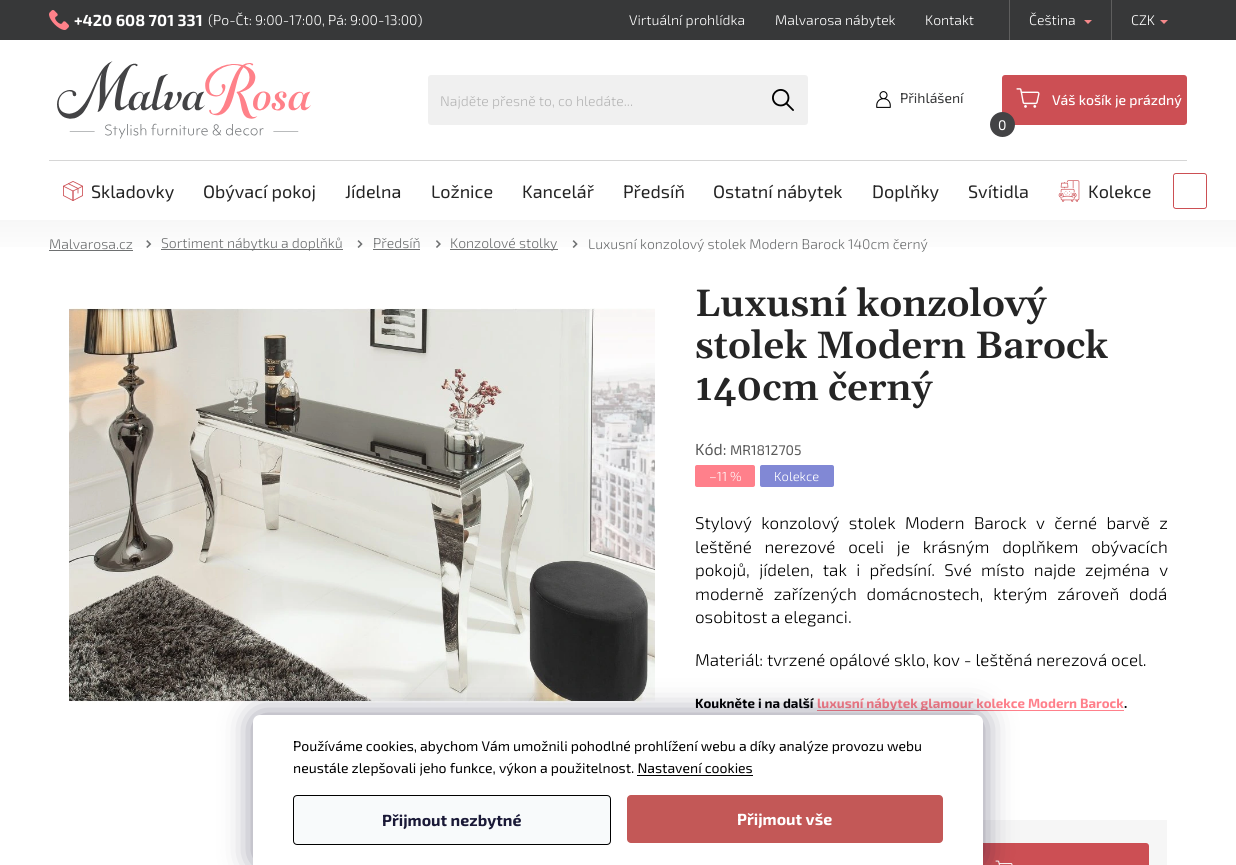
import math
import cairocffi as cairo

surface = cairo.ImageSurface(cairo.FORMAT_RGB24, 1236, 865)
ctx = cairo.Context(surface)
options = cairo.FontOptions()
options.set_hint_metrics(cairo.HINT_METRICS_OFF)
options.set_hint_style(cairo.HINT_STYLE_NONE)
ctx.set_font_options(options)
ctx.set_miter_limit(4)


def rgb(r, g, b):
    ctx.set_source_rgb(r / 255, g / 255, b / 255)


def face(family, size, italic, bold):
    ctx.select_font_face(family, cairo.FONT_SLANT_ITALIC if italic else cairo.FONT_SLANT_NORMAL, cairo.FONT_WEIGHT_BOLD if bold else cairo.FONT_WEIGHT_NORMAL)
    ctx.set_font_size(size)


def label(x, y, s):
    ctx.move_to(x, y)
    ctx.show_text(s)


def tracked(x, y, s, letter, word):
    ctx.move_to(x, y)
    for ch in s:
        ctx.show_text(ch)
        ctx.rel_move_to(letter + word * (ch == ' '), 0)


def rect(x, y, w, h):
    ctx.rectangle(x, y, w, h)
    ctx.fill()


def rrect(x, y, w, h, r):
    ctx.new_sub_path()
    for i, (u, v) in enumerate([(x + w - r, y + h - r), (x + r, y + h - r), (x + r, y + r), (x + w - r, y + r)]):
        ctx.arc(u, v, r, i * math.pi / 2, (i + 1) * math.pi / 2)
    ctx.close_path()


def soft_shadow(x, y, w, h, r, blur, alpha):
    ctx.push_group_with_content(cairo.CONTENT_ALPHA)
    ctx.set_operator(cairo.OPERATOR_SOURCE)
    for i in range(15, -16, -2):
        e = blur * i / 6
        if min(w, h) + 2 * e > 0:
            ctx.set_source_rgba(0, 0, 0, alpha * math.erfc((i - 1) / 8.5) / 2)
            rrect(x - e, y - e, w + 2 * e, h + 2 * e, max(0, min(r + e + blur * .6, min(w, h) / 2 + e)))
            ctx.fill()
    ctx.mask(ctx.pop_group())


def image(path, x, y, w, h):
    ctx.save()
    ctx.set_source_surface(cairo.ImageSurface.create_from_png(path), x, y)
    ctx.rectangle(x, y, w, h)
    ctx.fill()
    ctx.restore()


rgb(255, 255, 255)
ctx.paint()
rgb(55, 56, 57)
rect(0, 0, 1236, 40)
image('image0.png', 49, 10, 20, 20)
face('Exo 2', 16, 0, 1)
rgb(255, 255, 255)
label(74, 26, '+420 608 701 331')
face('Exo 2 Light', 14, 0, 0)
label(208, 25, '(Po-Čt: 9:00-17:00, Pá: 9:00-13:00)')
label(629, 25, 'Virtuální prohlídka')
label(775, 25, 'Malvarosa nábytek')
label(925, 25, 'Kontakt')
rgb(94, 94, 94)
rect(1111, 0, 1, 40)
rect(1009, 0, 1, 40)
rgb(255, 255, 255)
label(1029, 25, 'Čeština')
rgb(245, 137, 139)
ctx.new_path()
ctx.move_to(1084, 20)
ctx.line_to(1092, 20)
ctx.line_to(1088, 24)
ctx.close_path()
ctx.fill()
rgb(255, 255, 255)
label(1131, 25, 'CZK')
rgb(245, 137, 139)
ctx.new_path()
ctx.move_to(1160, 20)
ctx.line_to(1168, 20)
ctx.line_to(1164, 24)
ctx.close_path()
ctx.fill()
image('image1.png', 57, 61, 254, 78)
rgb(240, 240, 240)
rrect(428, 75, 380, 50, 3)
ctx.fill()
rgb(182, 182, 182)
label(440, 106, 'Najděte přesně to, co hledáte...')
image('image2.png', 772, 89, 22, 22)
image('image3.png', 876, 91, 15, 17)
face('Exo 2', 14, 0, 0)
rgb(55, 56, 57)
label(900, 103, 'Přihlášení')
rgb(204, 79, 84)
rrect(1002, 75, 185, 50, 3)
ctx.fill()
image('image4.png', 1016, 88, 24, 20)
face('Exo 2 Medium', 14, 0, 0)
rgb(255, 255, 255)
label(1052, 105, 'Váš košík je prázdný')
rgb(67, 67, 69)
ctx.new_path()
ctx.arc(1002.5, 124.5, 12.5, 0, 2 * math.pi)
ctx.fill()
face('Exo 2', 14, 0, 0)
rgb(255, 255, 255)
label(998, 130, '0')
rgb(214, 214, 214)
rect(49, 160, 1138, 1)
image('image5.png', 63, 181, 20, 20)
face('Exo 2', 18, 0, 0)
rgb(37, 37, 37)
label(91, 198, 'Skladovky')
label(203, 198, 'Obývací pokoj')
label(345, 198, 'Jídelna')
label(431, 198, 'Ložnice')
label(522, 198, 'Kancelář')
label(623, 198, 'Předsíň')
label(713, 198, 'Ostatní nábytek')
label(872, 198, 'Doplňky')
label(968, 198, 'Svítidla')
image('image6.png', 1058, 180, 22, 22)
label(1088, 198, 'Kolekce')
rrect(1173.5, 173.5, 33, 35, 2.5)
rgb(204, 79, 84)
ctx.set_line_width(1)
ctx.stroke()
rgb(255, 255, 255)
rect(1174, 175, 32, 32)
gradient = cairo.LinearGradient(618, 220, 618, 260)
gradient.add_color_stop_rgba(0, 0.969, 0.969, 0.969, 1)
gradient.add_color_stop_rgba(1, 1, 1, 1, 1)
ctx.set_source(gradient)
rect(0, 220, 1236, 27)
face('Exo 2 Light', 14, 0, 0)
rgb(110, 112, 113)
label(49, 249, 'Malvarosa.cz')
rect(49, 250, 84, 1)
image('image7.png', 146, 240, 6, 8)
rect(161, 249, 182, 1)
label(161, 248, 'Sortiment nábytku a doplňků')
image('image8.png', 357, 240, 6, 8)
label(373, 248, 'Předsíň')
rect(373, 249, 47, 1)
image('image9.png', 436, 240, 5, 8)
rect(450, 249, 108, 1)
label(450, 248, 'Konzolové stolky')
image('image10.png', 572, 240, 6, 8)
label(588, 249, 'Luxusní konzolový stolek Modern Barock 140cm černý')
image('image11.png', 69, 308, 586, 397)
face('Gelasio SemiBold', 38, 0, 0)
rgb(37, 37, 37)
label(695, 316, 'Luxusní konzolový')
label(695, 358, 'stolek Modern Barock')
label(695, 400, '140cm černý')
face('Exo 2', 16, 0, 0)
rgb(89, 89, 89)
label(695, 455, 'Kód:')
face('Exo 2', 14, 0, 0)
label(730, 455, 'MR1812705')
rgb(255, 128, 139)
rrect(695, 465, 60, 22, 2)
ctx.fill()
face('Exo 2 Light', 13, 0, 0)
rgb(255, 255, 255)
label(709, 481, '–11 %')
rgb(129, 136, 213)
rrect(760, 465, 74, 22, 2)
ctx.fill()
rgb(255, 255, 255)
label(774, 481, 'Kolekce')
face('Exo 2 Light', 17, 0, 0)
rgb(0, 0, 0)
tracked(695, 529, 'Stylový konzolový stolek Modern Barock v černé barvě z', 0, 5.5)
tracked(695, 553, 'leštěné nerezové oceli je krásným doplňkem obývacích', 0, 9)
tracked(695, 576, 'pokojů, jídelen, tak i předsíní. Své místo najde zejména v', 0, 5.5)
tracked(695, 600, 'moderně zařízených domácnostech, kterým zároveň dodá', 0, 6)
label(695, 623, 'osobitost a eleganci.')
label(695, 666, 'Materiál: tvrzené opálové sklo, kov - leštěná nerezová ocel.')
face('Exo 2', 13.3, 0, 1)
label(695, 708, 'Koukněte i na další')
rgb(255, 128, 139)
rect(817, 710, 307, 1)
label(817, 708, 'luxusní nábytek glamour kolekce Modern Barock')
rgb(0, 0, 0)
label(1124, 708, '.')
rgb(246, 246, 246)
rect(983, 820, 184, 45)
rgb(204, 79, 84)
rrect(973, 843, 176, 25, 3)
ctx.fill()
image('image12.png', 995, 860, 18, 5)
rgb(27, 25, 57)
soft_shadow(253, 715, 730, 150, 7, 15, 0.5)
rgb(255, 255, 255)
ctx.new_path()
ctx.move_to(260, 715)
ctx.line_to(976, 715)
ctx.curve_to(980, 715, 983, 718, 983, 722)
ctx.line_to(983, 865)
ctx.line_to(253, 865)
ctx.line_to(253, 722)
ctx.curve_to(253, 718, 256, 715, 260, 715)
ctx.close_path()
ctx.fill()
face('Exo 2', 14, 0, 0)
rgb(0, 0, 0)
label(293, 751, 'Používáme cookies, abychom Vám umožnili pohodlné prohlížení webu a díky analýze provozu webu')
label(293, 773, 'neustále zlepšovali jeho funkce, výkon a použitelnost. Nastavení cookies')
rect(637, 775, 116, 1)
rgb(248, 250, 251)
rrect(293.5, 795.5, 317, 49, 3.5)
ctx.fill_preserve()
rgb(0, 0, 0)
ctx.stroke()
face('Exo 2', 16, 0, 1)
rgb(26, 25, 55)
label(382, 826, 'Přijmout nezbytné')
rgb(195, 88, 87)
rrect(627, 795, 316, 48, 4)
ctx.fill()
rgb(255, 255, 255)
label(737, 825, 'Přijmout vše')
surface.write_to_png('render.png')
